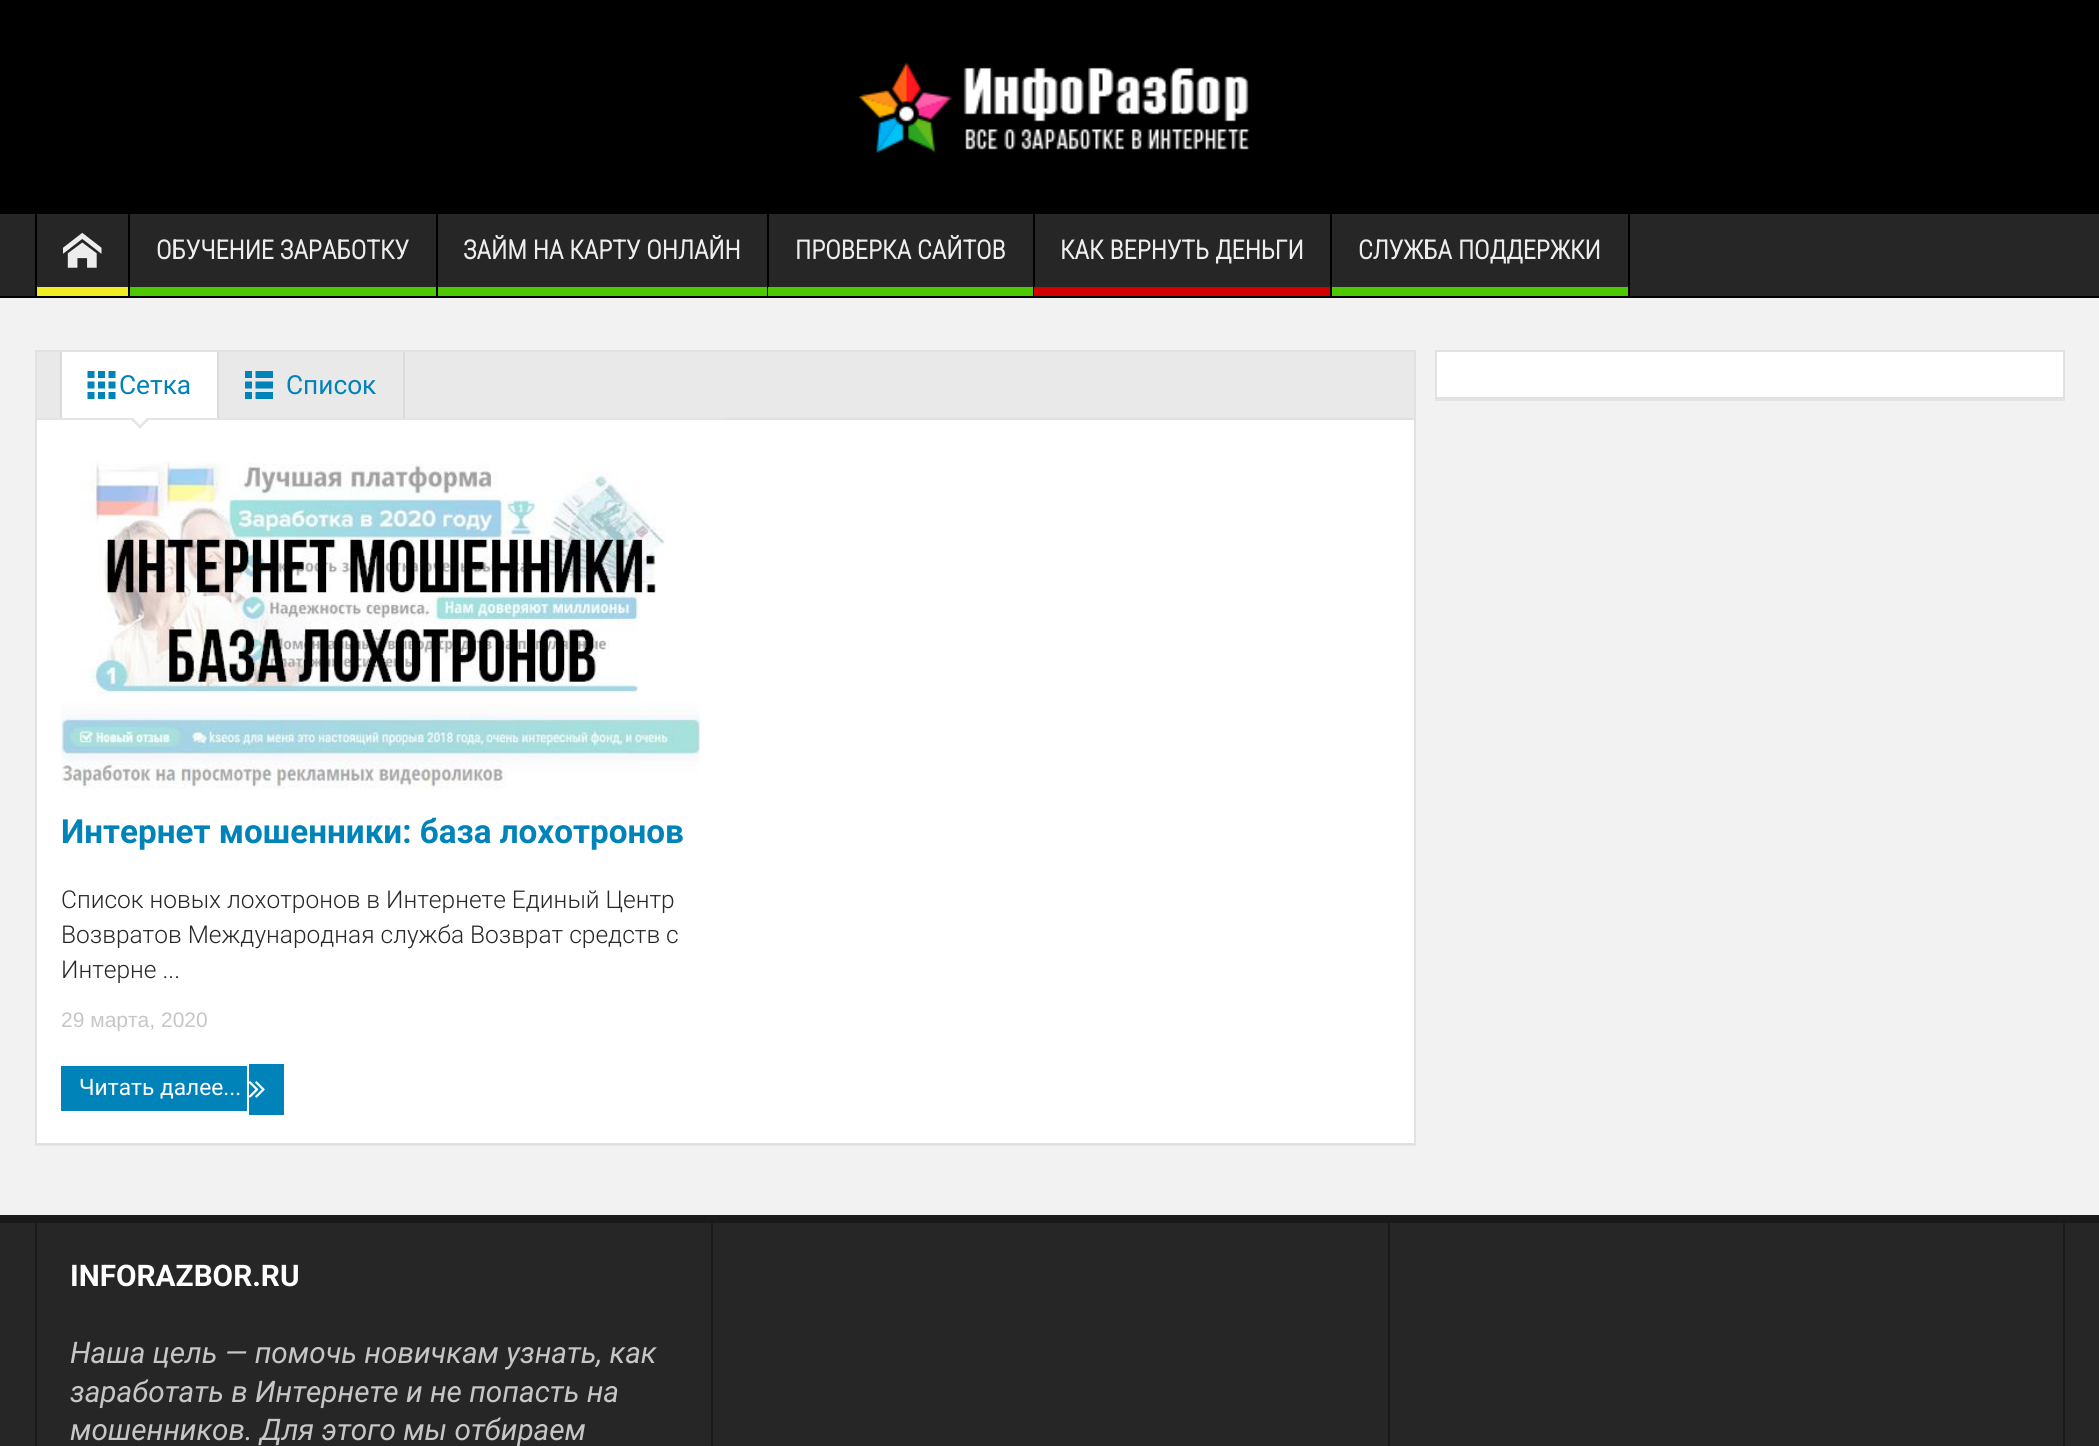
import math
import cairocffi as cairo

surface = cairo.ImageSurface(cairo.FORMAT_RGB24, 2099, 1446)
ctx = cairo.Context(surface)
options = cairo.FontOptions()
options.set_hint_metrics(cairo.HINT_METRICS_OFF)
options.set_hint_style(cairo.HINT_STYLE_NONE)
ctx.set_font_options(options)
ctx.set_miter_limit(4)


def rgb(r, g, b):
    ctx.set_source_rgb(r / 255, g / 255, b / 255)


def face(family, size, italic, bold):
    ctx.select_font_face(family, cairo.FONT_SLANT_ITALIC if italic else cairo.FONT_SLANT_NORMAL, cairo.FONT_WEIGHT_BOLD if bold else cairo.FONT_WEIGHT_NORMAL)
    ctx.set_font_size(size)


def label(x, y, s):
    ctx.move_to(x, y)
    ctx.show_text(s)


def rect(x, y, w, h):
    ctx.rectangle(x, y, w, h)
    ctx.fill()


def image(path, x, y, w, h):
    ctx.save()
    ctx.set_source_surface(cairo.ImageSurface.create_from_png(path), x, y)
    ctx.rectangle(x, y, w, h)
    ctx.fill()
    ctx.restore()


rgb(242, 242, 242)
ctx.paint()
rgb(0, 0, 0)
rect(0, 0, 2099, 214)
image('image0.png', 858, 62, 392, 91)
rgb(38, 38, 38)
rect(0, 214, 2099, 82)
rgb(0, 0, 0)
rect(0, 296, 2099, 2)
rect(128, 214, 2, 82)
rect(35, 214, 2, 82)
image('image1.png', 63, 232, 39, 36)
rgb(238, 238, 34)
rect(37, 287, 91, 9)
rgb(0, 0, 0)
rect(436, 214, 2, 82)
face('Roboto Condensed', 26.25, 0, 1)
rgb(237, 237, 237)
label(156, 259, 'ОБУЧЕНИЕ ЗАРАБОТКУ')
rgb(77, 201, 0)
rect(130, 287, 306, 9)
rgb(0, 0, 0)
rect(767, 214, 2, 82)
rgb(237, 237, 237)
label(463, 259, 'ЗАЙМ НА КАРТУ ОНЛАЙН')
rgb(77, 201, 0)
rect(438, 287, 329, 9)
rgb(0, 0, 0)
rect(1033, 214, 2, 82)
rgb(237, 237, 237)
label(795, 259, 'ПРОВЕРКА САЙТОВ')
rgb(77, 201, 0)
rect(768, 287, 265, 9)
rgb(0, 0, 0)
rect(1330, 214, 2, 82)
rgb(237, 237, 237)
label(1060, 259, 'КАК ВЕРНУТЬ ДЕНЬГИ')
rgb(211, 0, 0)
rect(1034, 287, 296, 9)
rgb(0, 0, 0)
rect(1628, 214, 2, 82)
rgb(237, 237, 237)
label(1358, 259, 'СЛУЖБА ПОДДЕРЖКИ')
rgb(77, 201, 0)
rect(1332, 287, 296, 9)
rgb(229, 229, 229)
ctx.new_path()
ctx.move_to(35, 1144)
ctx.line_to(35, 1146)
ctx.line_to(1416, 1146)
ctx.line_to(1416, 352)
ctx.line_to(1416, 1144)
ctx.close_path()
ctx.fill()
rgb(255, 255, 255)
rect(37, 420, 1377, 723)
ctx.rectangle(36, 351, 1379, 793)
rgb(225, 225, 225)
ctx.stroke()
rgb(233, 233, 233)
ctx.rectangle(36, 351, 1379, 68)
ctx.fill_preserve()
rgb(225, 225, 225)
ctx.stroke()
rgb(255, 255, 255)
rect(62, 352, 155, 66)
rgb(219, 219, 219)
rect(60, 352, 2, 66)
image('image2.png', 87, 371, 29, 28)
face('Roboto', 26.25, 0, 0)
rgb(0, 131, 185)
label(119, 394, 'Сетка')
rgb(228, 228, 228)
rect(37, 418, 688, 2)
rgb(229, 229, 229)
ctx.new_path()
ctx.move_to(129.5, 418)
ctx.line_to(150.5, 418)
ctx.line_to(140, 429)
ctx.close_path()
ctx.fill()
rgb(255, 255, 255)
ctx.new_path()
ctx.move_to(133, 418)
ctx.line_to(147, 418)
ctx.line_to(140, 425)
ctx.close_path()
ctx.fill()
rgb(219, 219, 219)
rect(403, 352, 2, 66)
rect(217, 352, 2, 66)
image('image3.png', 245, 371, 28, 28)
rgb(0, 131, 185)
label(286, 394, 'Список')
image('image4.png', 61, 461, 639, 328)
face('Roboto', 33.25, 0, 1)
label(61, 843, 'Интернет мошенники: база лохотронов')
face('Roboto Light', 24.5, 0, 0)
rgb(41, 40, 41)
label(61, 908, 'Список новых лохотронов в Интернете Единый Центр')
label(61, 943, 'Возвратов Международная служба Возврат средств с')
label(61, 978, 'Интерне ...')
face('Liberation Sans', 21, 0, 0)
rgb(198, 198, 198)
label(61, 1027, '29 марта, 2020')
rgb(0, 131, 185)
rect(61, 1066, 186, 45)
face('Roboto', 22.75, 0, 0)
rgb(255, 255, 255)
label(79, 1095, 'Читать далее...')
rgb(0, 131, 185)
rect(249, 1064, 35, 51)
image('image5.png', 249, 1081, 16, 17)
rgb(229, 229, 229)
rect(1435, 399, 630, 2)
rgb(255, 255, 255)
ctx.rectangle(1436, 351, 628, 47)
ctx.fill_preserve()
rgb(225, 225, 225)
ctx.stroke()
rgb(38, 38, 38)
rect(0, 1223, 2099, 223)
rgb(26, 26, 26)
rect(0, 1215, 2099, 8)
rect(711, 1223, 2, 223)
rect(35, 1223, 2, 223)
face('Roboto', 29.75, 0, 1)
rgb(255, 255, 255)
label(70, 1286, 'INFORAZBOR.RU')
face('Roboto', 29.75, 1, 0)
rgb(198, 198, 198)
label(70, 1363, 'Наша цель — помочь новичкам узнать, как')
label(70, 1402, 'заработать в Интернете и не попасть на')
label(70, 1440, 'мошенников. Для этого мы отбираем')
rgb(26, 26, 26)
rect(1388, 1223, 2, 223)
rect(2063, 1223, 2, 223)
surface.write_to_png('render.png')
